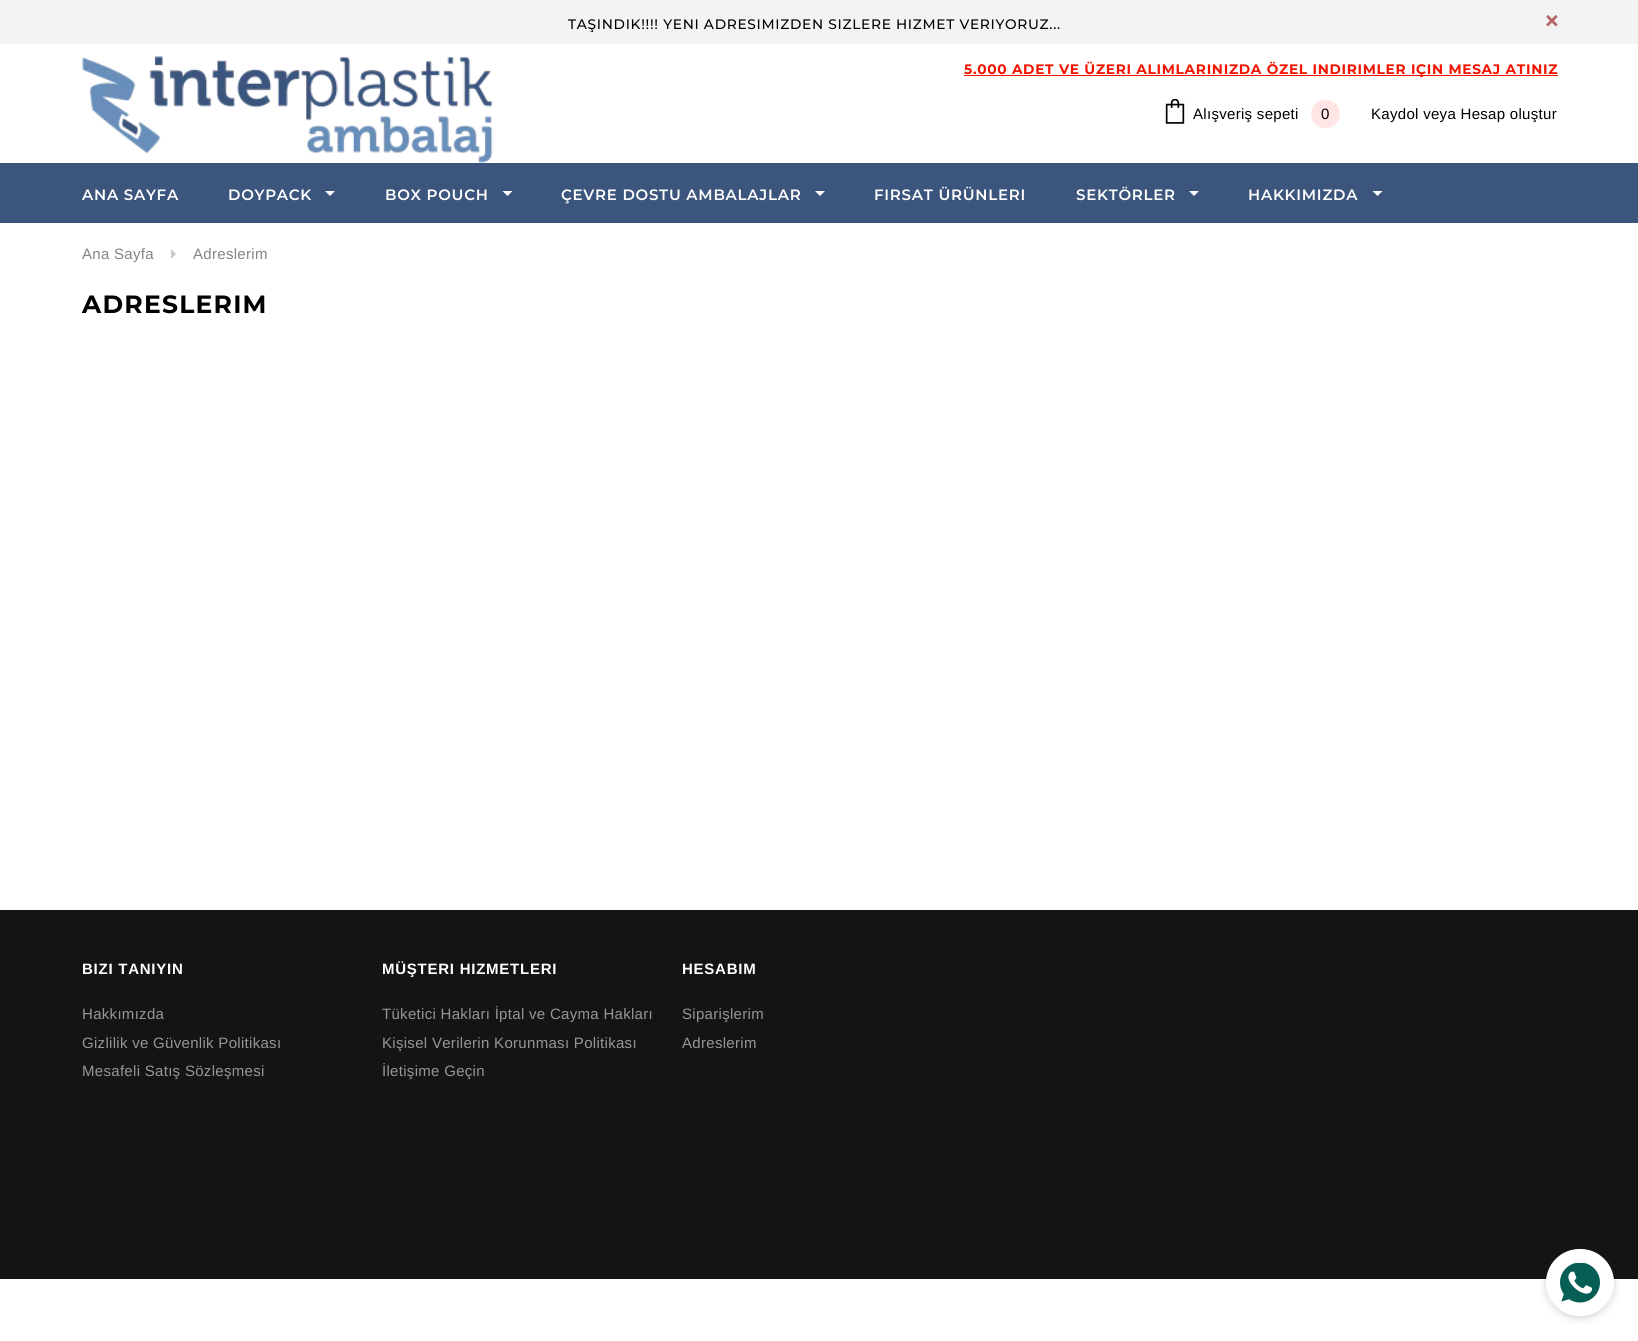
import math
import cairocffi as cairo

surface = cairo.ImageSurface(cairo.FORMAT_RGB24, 1638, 1341)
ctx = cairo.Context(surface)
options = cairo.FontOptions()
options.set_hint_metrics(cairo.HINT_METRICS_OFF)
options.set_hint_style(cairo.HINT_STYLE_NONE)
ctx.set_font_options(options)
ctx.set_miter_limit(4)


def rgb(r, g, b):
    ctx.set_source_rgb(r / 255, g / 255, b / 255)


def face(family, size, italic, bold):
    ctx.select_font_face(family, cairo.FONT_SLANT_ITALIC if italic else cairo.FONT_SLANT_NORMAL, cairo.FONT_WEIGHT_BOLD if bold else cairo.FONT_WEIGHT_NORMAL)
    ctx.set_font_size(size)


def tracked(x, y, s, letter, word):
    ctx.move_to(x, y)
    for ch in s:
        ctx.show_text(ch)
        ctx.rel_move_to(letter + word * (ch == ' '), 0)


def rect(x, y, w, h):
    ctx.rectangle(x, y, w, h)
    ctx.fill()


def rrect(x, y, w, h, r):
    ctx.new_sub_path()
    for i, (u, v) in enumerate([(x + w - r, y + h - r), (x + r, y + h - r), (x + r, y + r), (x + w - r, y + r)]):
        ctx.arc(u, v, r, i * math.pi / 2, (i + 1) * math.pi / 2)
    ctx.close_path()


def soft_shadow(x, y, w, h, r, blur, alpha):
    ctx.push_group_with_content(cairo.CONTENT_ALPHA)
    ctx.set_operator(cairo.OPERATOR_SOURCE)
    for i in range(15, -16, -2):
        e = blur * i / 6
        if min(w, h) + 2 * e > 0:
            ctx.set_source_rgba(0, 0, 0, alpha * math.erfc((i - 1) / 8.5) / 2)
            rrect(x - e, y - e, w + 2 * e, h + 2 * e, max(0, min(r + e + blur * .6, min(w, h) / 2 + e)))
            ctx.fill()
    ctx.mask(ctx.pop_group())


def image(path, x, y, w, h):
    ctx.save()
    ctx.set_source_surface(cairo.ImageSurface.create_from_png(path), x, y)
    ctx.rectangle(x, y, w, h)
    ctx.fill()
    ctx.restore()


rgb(255, 255, 255)
ctx.paint()
rgb(243, 243, 243)
rect(0, 0, 1638, 44)
face('Montserrat Medium', 13.75, 0, 0)
rgb(0, 0, 0)
tracked(568, 29, 'TAŞINDIK!!!! YENI ADRESIMIZDEN SIZLERE HIZMET VERIYORUZ...', 0.7, 0)
image('image0.png', 1546, 15, 12, 12)
image('image1.png', 82, 56, 411, 107)
rgb(242, 19, 0)
rect(964, 75, 594, 1)
face('Montserrat', 13.75, 0, 1)
tracked(964, 74, '5.000 ADET VE ÜZERI ALIMLARINIZDA ÖZEL INDIRIMLER IÇIN MESAJ ATINIZ', 0.7, 0)
image('image2.png', 1165, 99, 20, 25)
face('Arimo', 15, 0, 0)
rgb(0, 0, 0)
tracked(1193, 119, 'Alışveriş sepeti', 0.3, 0)
rgb(255, 229, 229)
rrect(1311, 100, 29, 28, 14)
ctx.fill()
rgb(0, 0, 0)
tracked(1321, 119, '0', 0.3, 0)
tracked(1371, 119, 'Kaydol veya Hesap oluştur', 0.3, 0)
rgb(60, 85, 125)
rect(0, 163, 1638, 60)
face('Montserrat SemiBold', 15, 0, 0)
rgb(255, 255, 255)
tracked(82, 200, 'ANA SAYFA', 0.75, 0)
tracked(228, 200, 'DOYPACK', 0.75, 0)
ctx.new_path()
ctx.move_to(325, 191)
ctx.line_to(335, 191)
ctx.line_to(330, 196)
ctx.close_path()
ctx.fill()
tracked(385, 200, 'BOX POUCH', 0.75, 0)
ctx.new_path()
ctx.move_to(502.5, 191)
ctx.line_to(512.5, 191)
ctx.line_to(507.5, 196)
ctx.close_path()
ctx.fill()
tracked(561, 200, 'ÇEVRE DOSTU AMBALAJLAR', 0.75, 0)
ctx.new_path()
ctx.move_to(815, 191)
ctx.line_to(825, 191)
ctx.line_to(820, 196)
ctx.close_path()
ctx.fill()
tracked(874, 200, 'FIRSAT ÜRÜNLERI', 0.75, 0)
tracked(1076, 200, 'SEKTÖRLER', 0.75, 0)
ctx.new_path()
ctx.move_to(1189, 191)
ctx.line_to(1199, 191)
ctx.line_to(1194, 196)
ctx.close_path()
ctx.fill()
tracked(1248, 200, 'HAKKIMIZDA', 0.75, 0)
ctx.new_path()
ctx.move_to(1372.5, 191)
ctx.line_to(1382.5, 191)
ctx.line_to(1377.5, 196)
ctx.close_path()
ctx.fill()
face('Arimo', 15, 0, 0)
rgb(132, 132, 132)
tracked(82, 259, 'Ana Sayfa', 0.3, 0)
rgb(203, 203, 203)
ctx.new_path()
ctx.move_to(171, 259)
ctx.line_to(171, 249)
ctx.line_to(176, 254)
ctx.close_path()
ctx.fill()
rgb(132, 132, 132)
tracked(193, 259, 'Adreslerim', 0.3, 0)
face('Montserrat', 25, 0, 1)
rgb(0, 0, 0)
tracked(82, 313, 'ADRESLERIM', 1.25, 0)
rgb(20, 20, 20)
rect(0, 910, 1638, 369)
face('Arimo', 15, 0, 1)
rgb(255, 255, 255)
tracked(82, 974, 'BIZI TANIYIN', 0.75, 0)
face('Arimo', 15, 0, 0)
rgb(150, 150, 150)
tracked(82, 1019, 'Hakkımızda', 0.3, 0)
tracked(82, 1048, 'Gizlilik ve Güvenlik Politikası', 0.3, 0)
tracked(82, 1076, 'Mesafeli Satış Sözleşmesi', 0.3, 0)
face('Arimo', 15, 0, 1)
rgb(255, 255, 255)
tracked(382, 974, 'MÜŞTERI HIZMETLERI', 0.75, 0)
face('Arimo', 15, 0, 0)
rgb(150, 150, 150)
tracked(382, 1019, 'Tüketici Hakları İptal ve Cayma Hakları', 0.3, 0)
tracked(382, 1048, 'Kişisel Verilerin Korunması Politikası', 0.3, 0)
tracked(382, 1076, 'İletişime Geçin', 0.3, 0)
face('Arimo', 15, 0, 1)
rgb(255, 255, 255)
tracked(682, 974, 'HESABIM', 0.75, 0)
face('Arimo', 15, 0, 0)
rgb(150, 150, 150)
tracked(682, 1019, 'Siparişlerim', 0.3, 0)
tracked(682, 1048, 'Adreslerim', 0.3, 0)
rgb(27, 27, 27)
soft_shadow(1546, 1250, 68, 68, 34, 4, 0.2)
rgb(255, 255, 255)
rrect(1546.5, 1249.5, 67, 66, 33)
ctx.fill_preserve()
ctx.set_line_width(1)
ctx.stroke()
image('image3.png', 1560, 1263, 40, 40)
surface.write_to_png('render.png')
